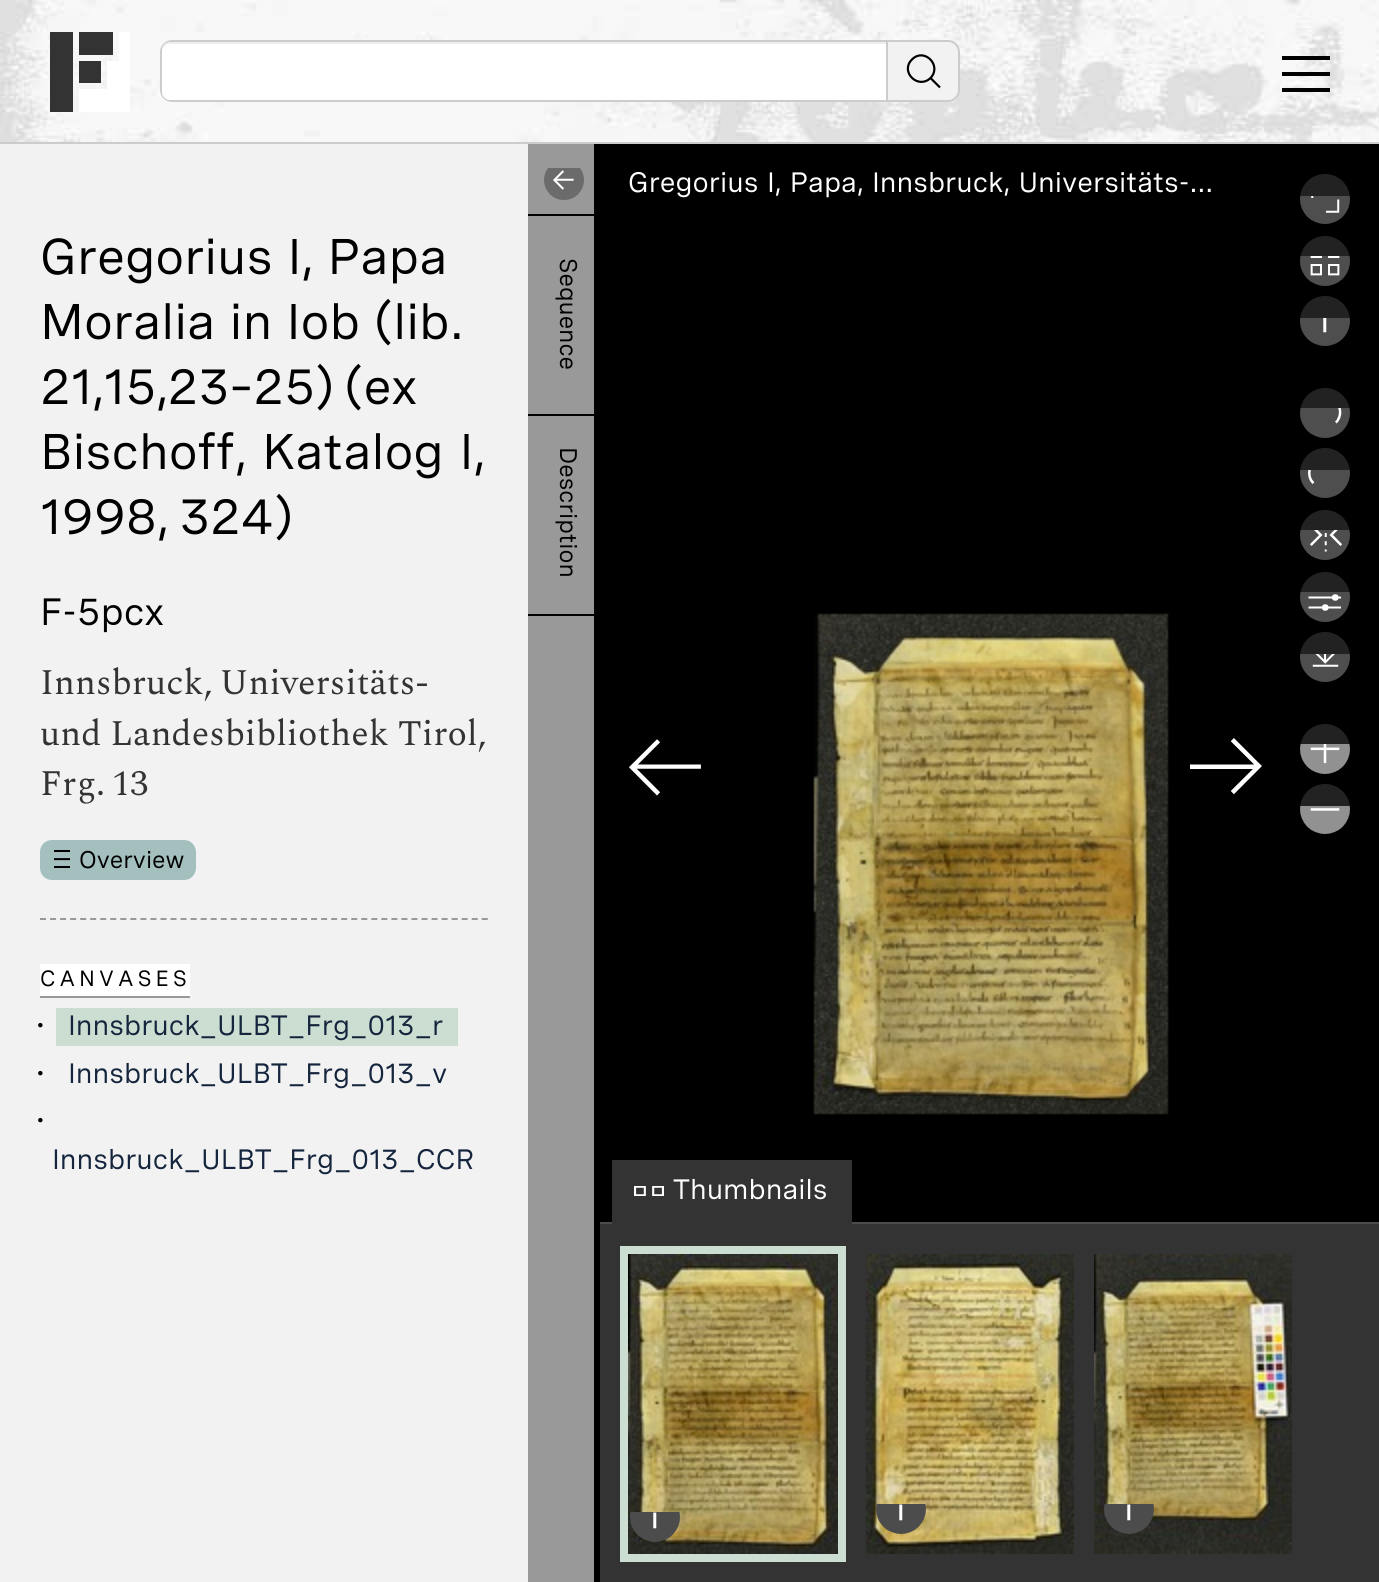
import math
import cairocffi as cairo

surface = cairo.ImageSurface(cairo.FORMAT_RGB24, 1379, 1582)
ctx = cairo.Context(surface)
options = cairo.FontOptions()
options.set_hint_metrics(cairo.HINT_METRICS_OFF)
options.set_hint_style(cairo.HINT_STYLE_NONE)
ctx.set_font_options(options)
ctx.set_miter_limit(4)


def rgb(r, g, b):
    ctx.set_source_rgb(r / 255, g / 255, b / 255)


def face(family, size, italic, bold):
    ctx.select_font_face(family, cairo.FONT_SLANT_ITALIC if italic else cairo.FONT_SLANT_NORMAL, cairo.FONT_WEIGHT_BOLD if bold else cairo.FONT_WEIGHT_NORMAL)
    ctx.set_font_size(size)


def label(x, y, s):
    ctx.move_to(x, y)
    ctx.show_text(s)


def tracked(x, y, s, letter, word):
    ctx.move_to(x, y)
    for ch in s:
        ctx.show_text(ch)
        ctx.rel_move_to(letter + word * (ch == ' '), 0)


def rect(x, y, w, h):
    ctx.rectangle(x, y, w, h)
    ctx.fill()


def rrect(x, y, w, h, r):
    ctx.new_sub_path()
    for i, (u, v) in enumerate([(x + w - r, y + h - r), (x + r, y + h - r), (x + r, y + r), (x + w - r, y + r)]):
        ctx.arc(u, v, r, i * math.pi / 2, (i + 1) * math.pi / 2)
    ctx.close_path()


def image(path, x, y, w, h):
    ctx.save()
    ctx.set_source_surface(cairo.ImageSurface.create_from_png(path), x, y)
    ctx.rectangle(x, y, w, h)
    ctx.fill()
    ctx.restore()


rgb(0, 0, 0)
ctx.paint()
image('image0.png', 0, 0, 1379, 142)
rgb(204, 204, 204)
rect(0, 142, 1379, 2)
rgb(51, 51, 51)
rect(79, 32, 34, 23)
rect(79, 61, 22, 22)
rect(50, 32, 23, 80)
rgb(255, 255, 255)
ctx.new_path()
ctx.move_to(119, 32)
ctx.line_to(119, 61)
ctx.line_to(107, 61)
ctx.line_to(107, 89)
ctx.line_to(79, 89)
ctx.line_to(79, 112)
ctx.line_to(130, 112)
ctx.line_to(130, 32)
ctx.close_path()
ctx.fill()
ctx.save()
rrect(160, 40, 800, 62, 12)
ctx.clip()
rgb(242, 242, 242)
rect(888, 40, 70, 62)
ctx.restore()
rrect(161, 41, 798, 60, 11)
rgb(204, 204, 204)
ctx.stroke()
rgb(255, 255, 255)
ctx.new_path()
ctx.move_to(170, 42)
ctx.line_to(888, 42)
ctx.line_to(888, 100)
ctx.line_to(170, 100)
ctx.curve_to(165.5, 100, 162, 96.5, 162, 92)
ctx.line_to(162, 50)
ctx.curve_to(162, 45.5, 165.5, 42, 170, 42)
ctx.close_path()
ctx.fill()
ctx.set_source_rgba(0, 0, 0, 0.07)
ctx.new_path()
ctx.move_to(170, 44)
ctx.line_to(886, 44)
ctx.line_to(886, 42)
ctx.line_to(170, 42)
ctx.curve_to(164, 42, 162, 47, 162, 52)
ctx.curve_to(162, 48, 166, 44, 170, 44)
ctx.close_path()
ctx.fill()
rgb(204, 204, 204)
rect(886, 42, 2, 58)
ctx.new_path()
ctx.move_to(912, 59.5)
ctx.curve_to(924, 47, 942.5, 65.5, 930.5, 78)
ctx.curve_to(918, 90, 899.5, 71.5, 912, 59.5)
ctx.close_path()
ctx.move_to(931, 78.5)
ctx.line_to(940, 87.5)
rgb(0, 0, 0)
ctx.set_line_width(2.2)
ctx.stroke()
rect(1282, 56, 48, 4)
rect(1282, 72, 48, 4)
rect(1282, 88, 48, 4)
rgb(153, 153, 153)
rect(528, 144, 66, 1438)
rgb(242, 242, 242)
rect(0, 144, 528, 1438)
face('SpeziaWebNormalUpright', 50, 0, 0)
rgb(0, 0, 0)
tracked(40, 274, 'Gregorius I, Papa', 0, 2)
tracked(40, 339, 'Moralia in Iob (lib.', 0, 1.5)
tracked(40, 404, '21,15,23–25) (ex', 0, -2)
tracked(40, 469, 'Bischoff, Katalog I,', 0, 3)
tracked(40, 534, '1998, 324)', 0, -2)
face('SpeziaWebNormalUpright', 38, 0, 0)
label(40, 625, 'F-5pcx')
face('Spectral', 36, 0, 0)
rgb(51, 51, 51)
tracked(40, 694, 'Innsbruck, Universitäts-', 0, -2)
label(40, 745, 'und Landesbibliothek Tirol,')
tracked(40, 795, 'Frg. 13', 0, -2)
rgb(163, 191, 190)
rrect(40, 840, 156, 40, 12)
ctx.fill()
image('image1.png', 54, 850, 16, 18)
face('SpeziaWebNormalUpright', 24, 0, 0)
rgb(0, 0, 0)
label(79, 868, 'Overview')
ctx.new_path()
ctx.move_to(40, 919)
ctx.line_to(488, 919)
rgb(153, 153, 153)
ctx.set_line_width(2)
ctx.set_dash([6, 4.04])
ctx.stroke()
rgb(255, 255, 255)
rect(40, 964, 150, 32)
rgb(153, 153, 153)
rect(40, 996, 150, 2)
face('SpeziaWebNormalUpright', 22, 0, 0)
rgb(0, 0, 0)
tracked(40, 986, 'CANVASES', 4, 0)
face('WenQuanYi Zen Hei Medium', 28, 0, 0)
label(26, 1035, '・')
rgb(204, 221, 209)
rect(56, 1008, 402, 38)
face('SpeziaWebNormalUpright', 28, 0, 0)
rgb(20, 37, 61)
label(68, 1035, 'Innsbruck_ULBT_Frg_013_r')
face('WenQuanYi Zen Hei Medium', 28, 0, 0)
rgb(0, 0, 0)
label(26, 1083, '・')
face('SpeziaWebNormalUpright', 28, 0, 0)
rgb(20, 37, 61)
label(68, 1083, 'Innsbruck_ULBT_Frg_013_v')
face('WenQuanYi Zen Hei Medium', 28, 0, 0)
rgb(0, 0, 0)
label(26, 1130, '・')
face('SpeziaWebNormalUpright', 28, 0, 0)
rgb(20, 37, 61)
label(52, 1169, 'Innsbruck_ULBT_Frg_013_CCR')
rgb(0, 0, 0)
rect(528, 214, 72, 2)
image('image2.png', 544, 168, 40, 32)
rect(528, 414, 72, 2)
face('SpeziaWebNormalUpright', 24, 0, 0)
ctx.save()
ctx.translate(560, 258)
ctx.rotate(90 * math.pi / 180)
label(0, 0, 'Sequence')
ctx.restore()
rect(528, 614, 72, 2)
ctx.save()
ctx.translate(560, 447)
ctx.rotate(90 * math.pi / 180)
label(0, 0, 'Description')
ctx.restore()
face('SpeziaWebNormalUpright', 28, 0, 0)
rgb(255, 255, 255)
tracked(628, 192, 'Gregorius I, Papa, Innsbruck, Universitäts-…', 0, 1.5)
rgb(34, 34, 34)
ctx.new_path()
ctx.arc(1325, 199, 25, 0, 2 * math.pi)
ctx.fill()
image('image3.png', 1300, 196, 50, 28)
ctx.arc(1325, 261, 25, 0, 2 * math.pi)
ctx.fill()
image('image4.png', 1300, 256, 50, 30)
ctx.arc(1325, 321, 25, 0, 2 * math.pi)
ctx.fill()
image('image5.png', 1300, 318, 50, 28)
ctx.arc(1325, 413, 25, 0, 2 * math.pi)
ctx.fill()
image('image6.png', 1300, 408, 50, 30)
ctx.arc(1325, 473, 25, 0, 2 * math.pi)
ctx.fill()
image('image7.png', 1300, 470, 50, 28)
ctx.arc(1325, 535, 25, 0, 2 * math.pi)
ctx.fill()
image('image8.png', 1300, 530, 50, 30)
ctx.arc(1325, 597, 25, 0, 2 * math.pi)
ctx.fill()
image('image9.png', 1300, 592, 50, 30)
ctx.arc(1325, 657, 25, 0, 2 * math.pi)
ctx.fill()
image('image10.png', 1300, 654, 50, 28)
ctx.arc(1325, 749, 25, 0, 2 * math.pi)
ctx.fill()
image('image11.png', 1300, 744, 50, 30)
ctx.arc(1325, 809, 25, 0, 2 * math.pi)
ctx.fill()
image('image12.png', 1300, 806, 50, 28)
image('image13.png', 629, 739, 72, 57)
image('image14.png', 813, 613, 356, 502)
image('image15.png', 1190, 738, 72, 57)
rgb(76, 76, 76)
rect(600, 1222, 779, 2)
rgb(51, 51, 51)
rect(612, 1160, 240, 64)
image('image16.png', 634, 1186, 30, 10)
rgb(255, 255, 255)
label(673, 1199, 'Thumbnails')
rgb(51, 51, 51)
rect(600, 1224, 779, 358)
image('image17.png', 628, 1254, 210, 300)
ctx.rectangle(624, 1250, 218, 308)
rgb(204, 221, 209)
ctx.set_line_width(8)
ctx.set_dash([])
ctx.stroke()
image('image18.png', 630, 1512, 50, 30)
image('image19.png', 866, 1254, 208, 300)
image('image20.png', 876, 1504, 50, 30)
image('image21.png', 1094, 1254, 198, 300)
image('image22.png', 1104, 1504, 50, 30)
surface.write_to_png('render.png')
